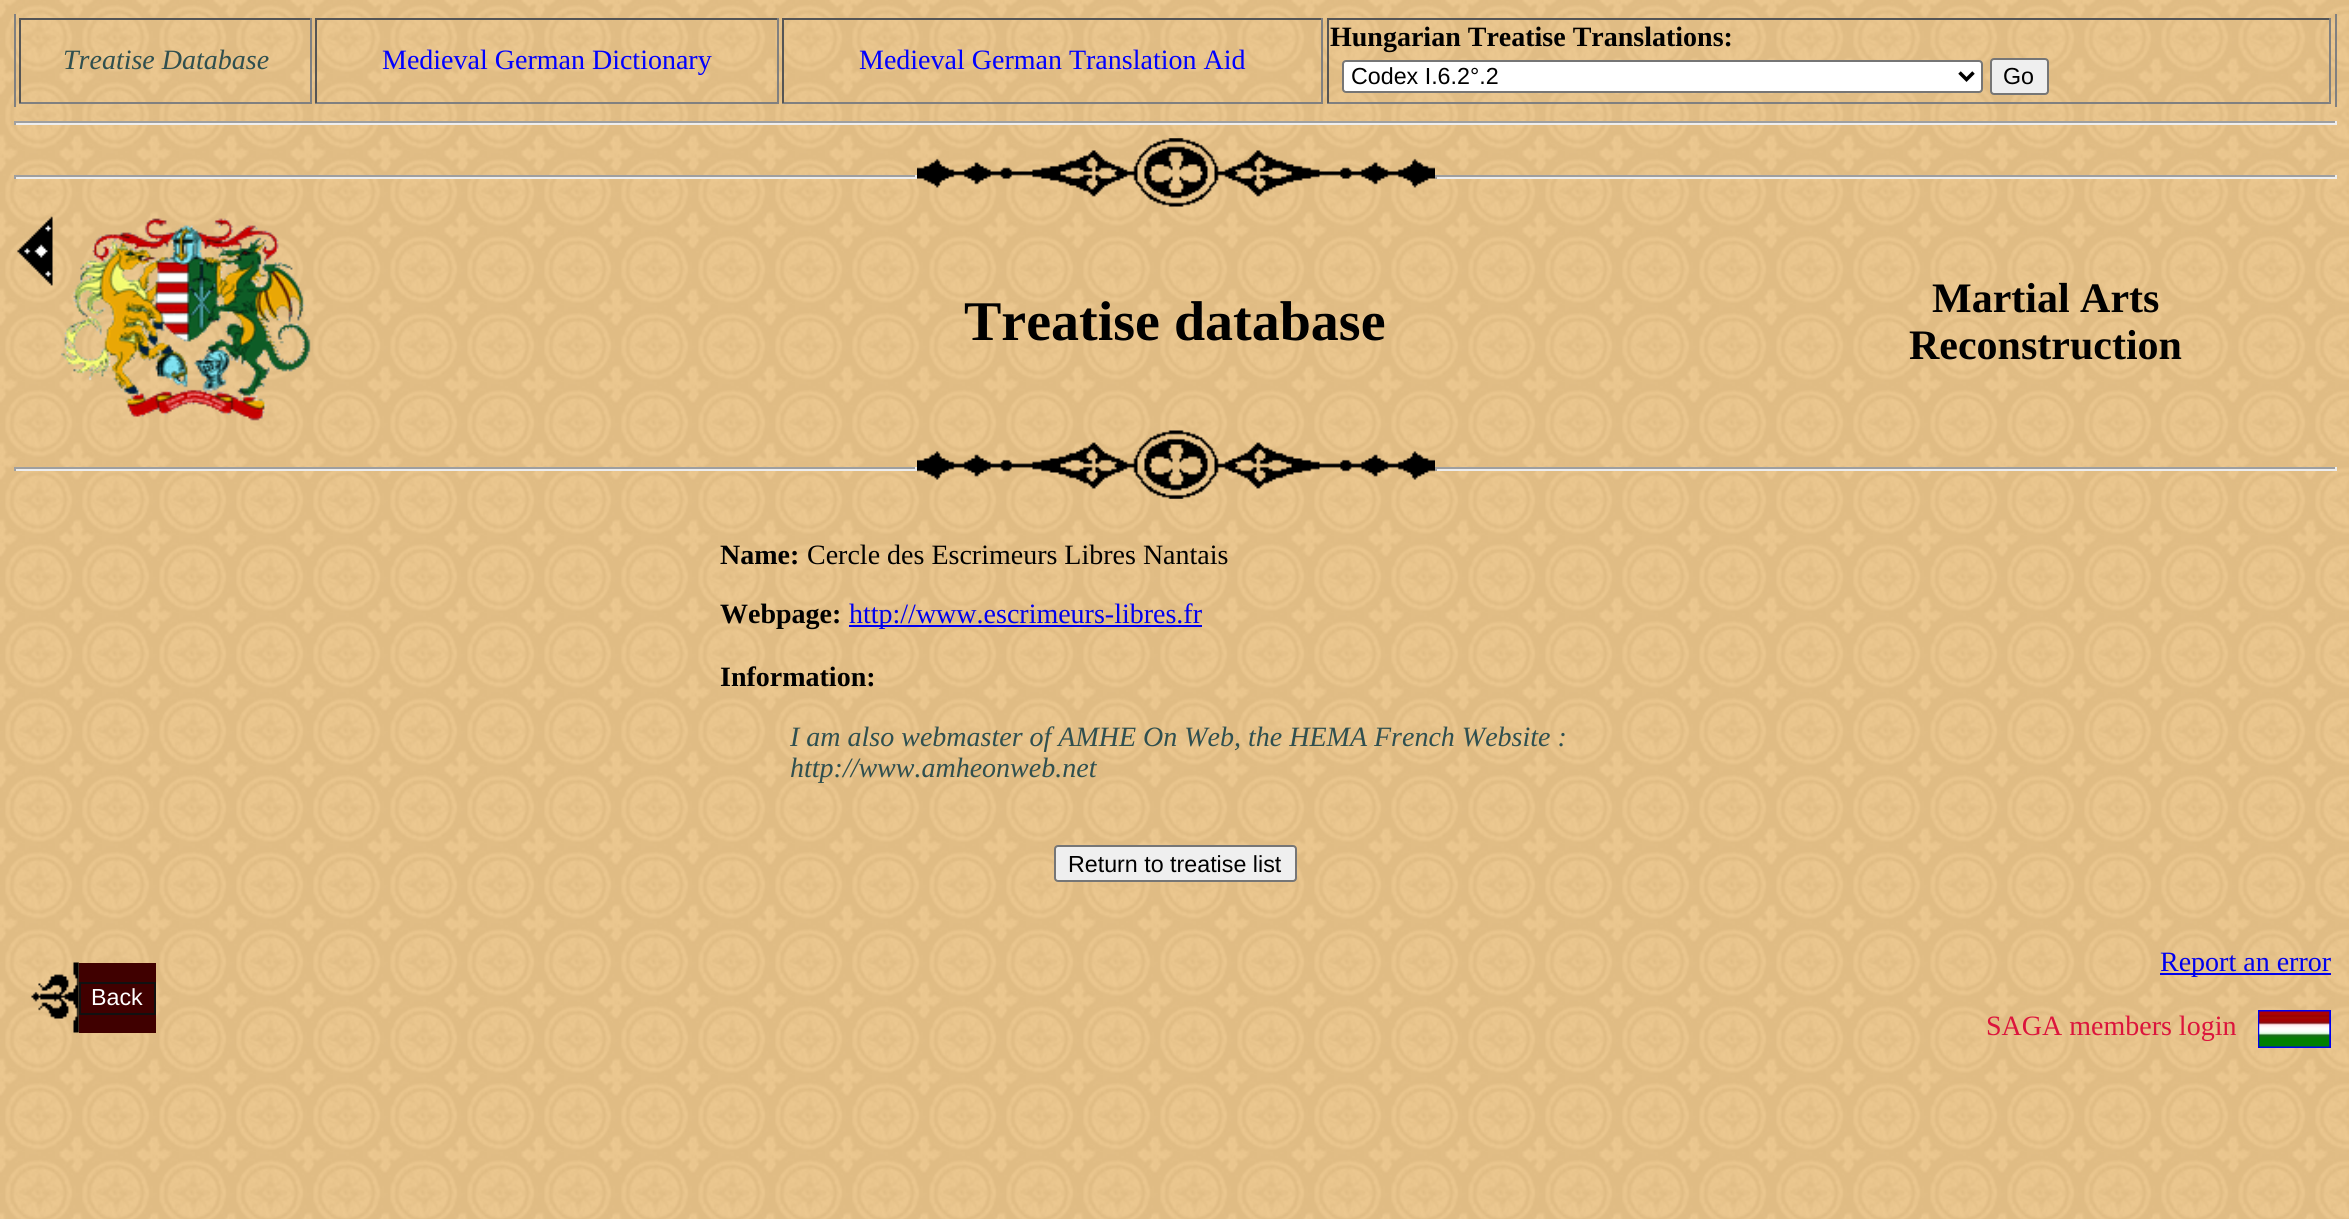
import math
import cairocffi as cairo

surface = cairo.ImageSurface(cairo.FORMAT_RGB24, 2349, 1219)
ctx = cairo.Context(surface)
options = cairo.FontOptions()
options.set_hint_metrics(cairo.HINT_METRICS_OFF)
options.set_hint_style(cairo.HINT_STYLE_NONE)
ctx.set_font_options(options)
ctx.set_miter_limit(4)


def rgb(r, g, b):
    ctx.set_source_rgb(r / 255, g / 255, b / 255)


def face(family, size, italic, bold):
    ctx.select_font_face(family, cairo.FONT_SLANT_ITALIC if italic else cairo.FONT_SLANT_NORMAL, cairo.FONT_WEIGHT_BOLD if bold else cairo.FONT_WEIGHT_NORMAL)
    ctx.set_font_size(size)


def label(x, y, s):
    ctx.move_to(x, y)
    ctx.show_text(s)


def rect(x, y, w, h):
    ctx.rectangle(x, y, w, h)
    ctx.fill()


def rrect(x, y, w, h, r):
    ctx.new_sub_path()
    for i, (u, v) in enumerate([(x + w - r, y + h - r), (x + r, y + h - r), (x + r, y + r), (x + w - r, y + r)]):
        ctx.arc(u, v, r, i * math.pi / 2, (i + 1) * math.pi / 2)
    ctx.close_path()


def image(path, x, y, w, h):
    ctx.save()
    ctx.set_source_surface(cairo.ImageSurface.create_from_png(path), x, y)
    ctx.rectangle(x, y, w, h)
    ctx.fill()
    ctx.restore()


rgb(255, 255, 255)
ctx.paint()
image('image0.png', 0, 0, 2349, 1219)
rgb(128, 128, 128)
rect(2335, 14, 2, 93)
rect(14, 14, 2, 93)
rgb(85, 85, 85)
rect(19, 18, 293, 2)
rgb(128, 128, 128)
rect(310, 18, 2, 85)
rect(19, 102, 293, 2)
rgb(85, 85, 85)
rect(19, 18, 2, 85)
face('Liberation Serif', 28, 1, 0)
rgb(47, 79, 79)
label(63, 69, 'Treatise Database')
rgb(85, 85, 85)
rect(315, 18, 464, 2)
rgb(128, 128, 128)
rect(777, 18, 2, 85)
rect(315, 102, 464, 2)
rgb(85, 85, 85)
rect(315, 18, 2, 85)
face('Liberation Serif', 28, 0, 0)
rgb(0, 0, 255)
label(382, 69, 'Medieval German Dictionary')
rgb(85, 85, 85)
rect(782, 18, 541, 2)
rgb(128, 128, 128)
rect(1321, 18, 2, 85)
rect(782, 102, 541, 2)
rgb(85, 85, 85)
rect(782, 18, 2, 85)
rgb(0, 0, 255)
label(859, 69, 'Medieval German Translation Aid')
rgb(85, 85, 85)
rect(1327, 18, 1004, 2)
rgb(128, 128, 128)
rect(2329, 18, 2, 85)
rect(1327, 102, 1004, 2)
rgb(85, 85, 85)
rect(1327, 18, 2, 85)
face('Liberation Serif', 28, 0, 1)
rgb(0, 0, 0)
label(1330, 46, 'Hungarian Treatise Translations:')
rgb(255, 255, 255)
rrect(1343, 61, 639, 31, 3)
ctx.fill_preserve()
rgb(118, 118, 118)
ctx.stroke()
ctx.new_path()
ctx.move_to(1959.5, 72.5)
ctx.line_to(1966.5, 79.5)
ctx.line_to(1973.5, 72.5)
rgb(0, 0, 0)
ctx.set_line_width(3.5)
ctx.stroke()
face('Liberation Sans', 23.25, 0, 0)
label(1351, 84, 'Codex I.6.2°.2')
rgb(239, 239, 239)
rrect(1991, 59, 57, 35, 3)
ctx.fill_preserve()
rgb(118, 118, 118)
ctx.set_line_width(2)
ctx.stroke()
rgb(0, 0, 0)
label(2003, 84, 'Go')
rgb(159, 159, 159)
rect(14, 121, 2322, 2)
rgb(238, 238, 238)
rect(2335, 121, 2, 4)
rect(14, 123, 2322, 2)
rgb(159, 159, 159)
rect(14, 121, 2, 4)
rect(14, 175, 903, 2)
rgb(238, 238, 238)
rect(915, 175, 2, 4)
rect(14, 177, 903, 2)
rgb(159, 159, 159)
rect(14, 175, 2, 4)
image('image1.png', 917, 138, 518, 69)
rect(1435, 175, 901, 2)
rgb(238, 238, 238)
rect(2335, 175, 2, 4)
rect(1435, 177, 901, 2)
rgb(159, 159, 159)
rect(1435, 175, 2, 4)
image('image2.png', 17, 216, 36, 70)
image('image3.png', 60, 218, 251, 203)
face('Liberation Serif', 56, 0, 1)
rgb(0, 0, 0)
label(964, 340, 'Treatise database')
face('Liberation Serif', 42, 0, 1)
label(1932, 312, 'Martial Arts')
label(1909, 359, 'Reconstruction')
rgb(159, 159, 159)
rect(14, 467, 903, 2)
rgb(238, 238, 238)
rect(915, 467, 2, 4)
rect(14, 469, 903, 2)
rgb(159, 159, 159)
rect(14, 467, 2, 4)
image('image4.png', 917, 430, 518, 69)
rect(1435, 467, 901, 2)
rgb(238, 238, 238)
rect(2335, 467, 2, 4)
rect(1435, 469, 901, 2)
rgb(159, 159, 159)
rect(1435, 467, 2, 4)
face('Liberation Serif', 28, 0, 1)
rgb(0, 0, 0)
label(720, 564, 'Name:')
face('Liberation Serif', 28, 0, 0)
label(807, 564, 'Cercle des Escrimeurs Libres Nantais')
face('Liberation Serif', 28, 0, 1)
label(720, 623, 'Webpage:')
rgb(0, 0, 238)
rect(849, 625, 353, 2)
face('Liberation Serif', 28, 0, 0)
label(849, 623, 'http://www.escrimeurs-libres.fr')
face('Liberation Serif', 28, 0, 1)
rgb(0, 0, 0)
label(720, 686, 'Information:')
face('Liberation Serif', 28, 1, 0)
rgb(47, 79, 79)
label(790, 746, 'I am also webmaster of AMHE On Web, the HEMA French Website :')
label(790, 777, 'http://www.amheonweb.net')
rgb(239, 239, 239)
rrect(1055, 846, 241, 35, 3)
ctx.fill_preserve()
rgb(118, 118, 118)
ctx.stroke()
face('Liberation Sans', 23.25, 0, 0)
rgb(0, 0, 0)
label(1068, 872, 'Return to treatise list')
image('image5.png', 31, 962, 48, 71)
rgb(64, 0, 0)
rect(79, 963, 77, 70)
ctx.rectangle(80, 983, 75, 31)
rgb(17, 17, 17)
ctx.stroke()
rgb(255, 255, 255)
label(91, 1005, 'Back')
rgb(0, 0, 238)
rect(2160, 973, 171, 2)
face('Liberation Serif', 28, 0, 0)
label(2160, 971, 'Report an error')
ctx.rectangle(2259, 1011, 71, 36)
ctx.stroke()
rgb(220, 20, 60)
label(1986, 1035, 'SAGA members login')
image('image6.png', 2259, 1011, 71, 36)
surface.write_to_png('render.png')
